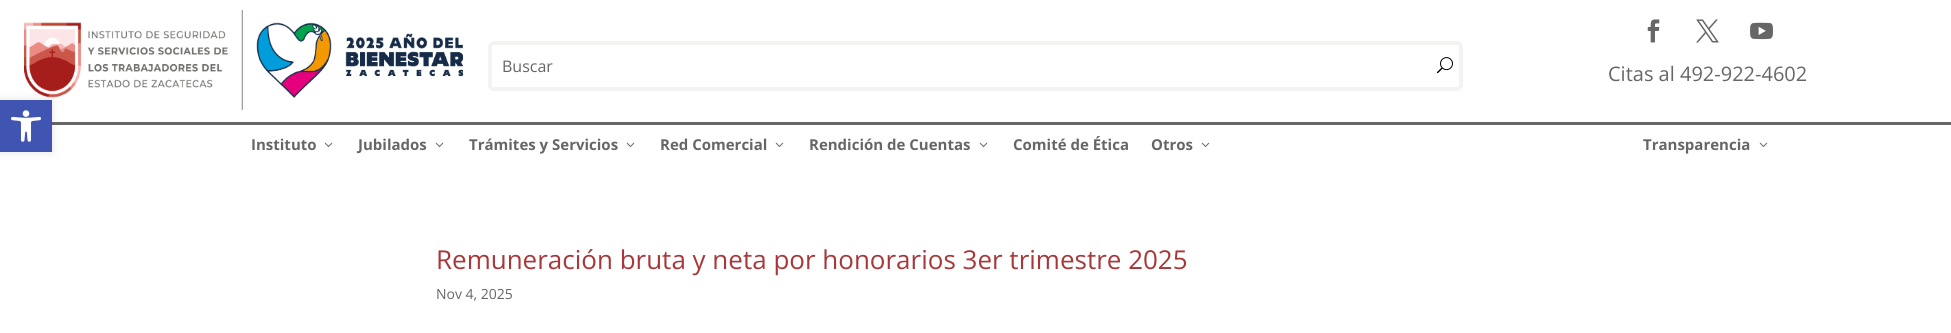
import math
import cairocffi as cairo

surface = cairo.ImageSurface(cairo.FORMAT_RGB24, 1951, 333)
ctx = cairo.Context(surface)
options = cairo.FontOptions()
options.set_hint_metrics(cairo.HINT_METRICS_OFF)
options.set_hint_style(cairo.HINT_STYLE_NONE)
ctx.set_font_options(options)
ctx.set_miter_limit(4)


def rgb(r, g, b):
    ctx.set_source_rgb(r / 255, g / 255, b / 255)


def face(family, size, italic, bold):
    ctx.select_font_face(family, cairo.FONT_SLANT_ITALIC if italic else cairo.FONT_SLANT_NORMAL, cairo.FONT_WEIGHT_BOLD if bold else cairo.FONT_WEIGHT_NORMAL)
    ctx.set_font_size(size)


def label(x, y, s):
    ctx.move_to(x, y)
    ctx.show_text(s)


def rect(x, y, w, h):
    ctx.rectangle(x, y, w, h)
    ctx.fill()


def rrect(x, y, w, h, r):
    ctx.new_sub_path()
    for i, (u, v) in enumerate([(x + w - r, y + h - r), (x + r, y + h - r), (x + r, y + r), (x + w - r, y + r)]):
        ctx.arc(u, v, r, i * math.pi / 2, (i + 1) * math.pi / 2)
    ctx.close_path()


def soft_shadow(x, y, w, h, r, blur, alpha):
    ctx.push_group_with_content(cairo.CONTENT_ALPHA)
    ctx.set_operator(cairo.OPERATOR_SOURCE)
    for i in range(15, -16, -2):
        e = blur * i / 6
        if min(w, h) + 2 * e > 0:
            ctx.set_source_rgba(0, 0, 0, alpha * math.erfc((i - 1) / 8.5) / 2)
            rrect(x - e, y - e, w + 2 * e, h + 2 * e, max(0, min(r + e + blur * .6, min(w, h) / 2 + e)))
            ctx.fill()
    ctx.mask(ctx.pop_group())


def image(path, x, y, w, h):
    ctx.save()
    ctx.set_source_surface(cairo.ImageSurface.create_from_png(path), x, y)
    ctx.rectangle(x, y, w, h)
    ctx.fill()
    ctx.restore()


rgb(255, 255, 255)
ctx.paint()
image('image1.png', 24, 10, 439, 100)
rgb(102, 102, 102)
rect(52, 122, 1899, 3)
rgb(0, 0, 0)
soft_shadow(0, 100, 52, 52, 0, 5, 0.1)
rgb(64, 84, 178)
rect(0, 100, 52, 52)
image('image0.png', 11, 110, 30, 32)
rrect(490, 43, 971, 46, 4)
rgb(244, 243, 241)
ctx.set_line_width(4)
ctx.stroke()
face('Open Sans', 16, 0, 0)
rgb(102, 102, 102)
label(502, 72, 'Buscar')
image('image2.png', 1437, 57, 16, 17)
image('image3.png', 1647, 19, 13, 24)
image('image4.png', 1696, 19, 23, 24)
image('image5.png', 1750, 22, 23, 18)
face('Open Sans', 20, 0, 0)
label(1608, 81, 'Citas al 492-922-4602')
face('Open Sans', 15, 0, 1)
label(251, 150, 'Instituto')
image('image6.png', 324, 142, 9, 5)
label(358, 150, 'Jubilados')
image('image6.png', 435, 142, 9, 5)
label(469, 150, 'Trámites y Servicios')
image('image6.png', 626, 142, 9, 5)
label(660, 150, 'Red Comercial')
image('image6.png', 775, 142, 9, 5)
label(809, 150, 'Rendición de Cuentas')
image('image6.png', 979, 142, 9, 5)
label(1013, 150, 'Comité de Ética')
label(1151, 150, 'Otros')
image('image6.png', 1201, 142, 9, 5)
label(1643, 150, 'Transparencia')
image('image6.png', 1759, 142, 9, 5)
face('Open Sans', 26, 0, 0)
rgb(168, 55, 58)
label(436, 269, 'Remuneración bruta y neta por honorarios 3er trimestre 2025')
face('Open Sans', 14, 0, 0)
rgb(102, 102, 102)
label(436, 299, 'Nov 4, 2025')
surface.write_to_png('render.png')
